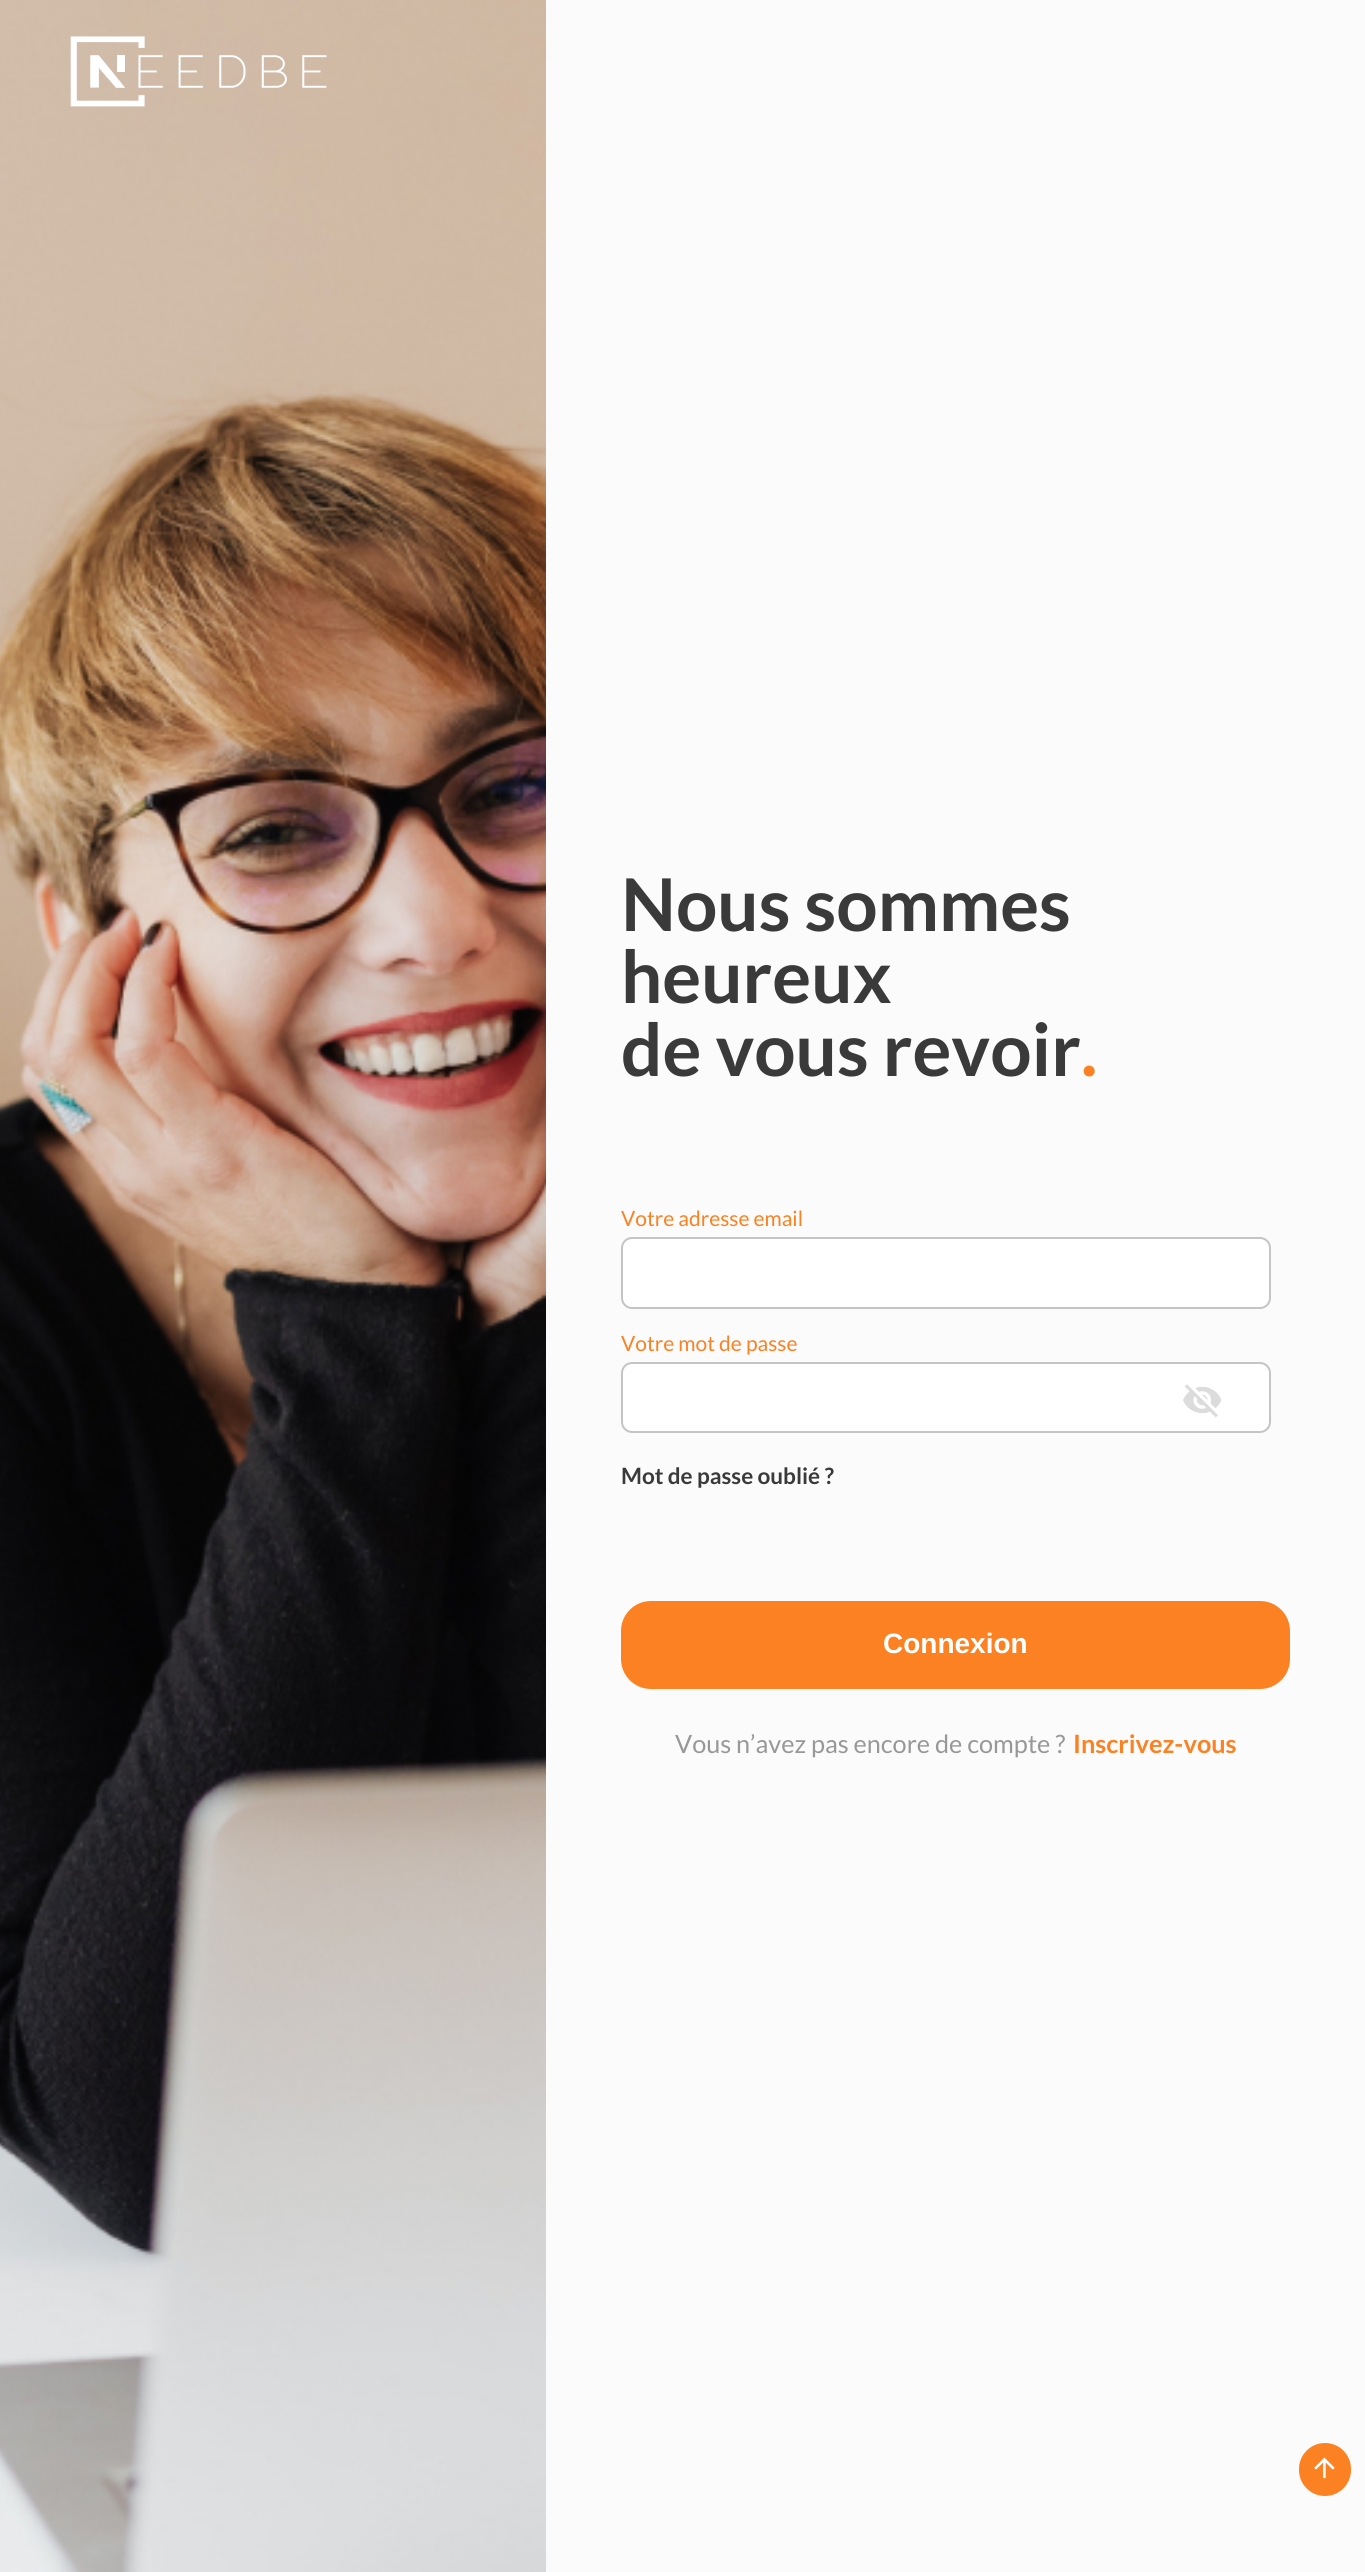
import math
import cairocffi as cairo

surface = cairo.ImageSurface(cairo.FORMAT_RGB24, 1365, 2572)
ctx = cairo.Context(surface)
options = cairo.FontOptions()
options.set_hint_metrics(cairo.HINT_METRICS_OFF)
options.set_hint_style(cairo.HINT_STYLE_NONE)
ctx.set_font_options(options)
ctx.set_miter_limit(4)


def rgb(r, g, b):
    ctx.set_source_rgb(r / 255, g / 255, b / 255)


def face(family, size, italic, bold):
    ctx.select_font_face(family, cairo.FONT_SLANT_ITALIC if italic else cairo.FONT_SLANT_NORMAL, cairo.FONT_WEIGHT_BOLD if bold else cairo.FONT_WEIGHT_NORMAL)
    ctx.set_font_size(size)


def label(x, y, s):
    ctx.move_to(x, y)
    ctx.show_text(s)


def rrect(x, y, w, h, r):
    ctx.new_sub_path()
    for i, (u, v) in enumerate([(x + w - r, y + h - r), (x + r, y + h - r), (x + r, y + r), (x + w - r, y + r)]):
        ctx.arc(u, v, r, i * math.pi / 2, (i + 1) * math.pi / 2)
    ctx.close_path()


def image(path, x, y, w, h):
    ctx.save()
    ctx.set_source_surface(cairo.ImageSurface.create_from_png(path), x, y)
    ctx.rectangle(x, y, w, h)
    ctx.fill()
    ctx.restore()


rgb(252, 251, 251)
ctx.paint()
image('image1.png', 0, 0, 546, 2572)
image('image0.png', 70, 36, 257, 71)
face('Lato', 72.75, 0, 1)
rgb(58, 58, 58)
label(621, 931, 'Nous sommes')
label(621, 1003, 'heureux')
label(621, 1076, 'de vous revoir')
rgb(251, 129, 34)
label(1081, 1076, '.')
face('Lato', 21, 0, 0)
label(621, 1226, 'Votre adresse email')
rgb(255, 255, 255)
rrect(622, 1238, 648, 70, 10)
ctx.fill_preserve()
rgb(196, 196, 196)
ctx.stroke()
rgb(251, 129, 34)
label(621, 1351, 'Votre mot de passe')
rgb(255, 255, 255)
rrect(622, 1363, 648, 69, 10)
ctx.fill_preserve()
rgb(196, 196, 196)
ctx.stroke()
image('image2.png', 1183, 1384, 39, 34)
face('Lato', 22.5, 0, 1)
rgb(58, 58, 58)
label(621, 1484, 'Mot de passe oublié ?')
rgb(251, 129, 34)
rrect(621, 1601, 669, 88, 30)
ctx.fill()
face('Liberation Sans', 28, 0, 1)
rgb(255, 255, 255)
label(883, 1653, 'Connexion')
face('Lato', 25.25, 0, 0)
rgb(152, 152, 152)
label(675, 1753, 'Vous n’avez pas encore de compte ?')
face('Lato', 25.25, 0, 1)
rgb(251, 129, 34)
label(1073, 1753, 'Inscrivez-vous')
rrect(1299, 2443, 52, 53, 26)
ctx.fill()
image('image3.png', 1314, 2457, 21, 22)
surface.write_to_png('render.png')
